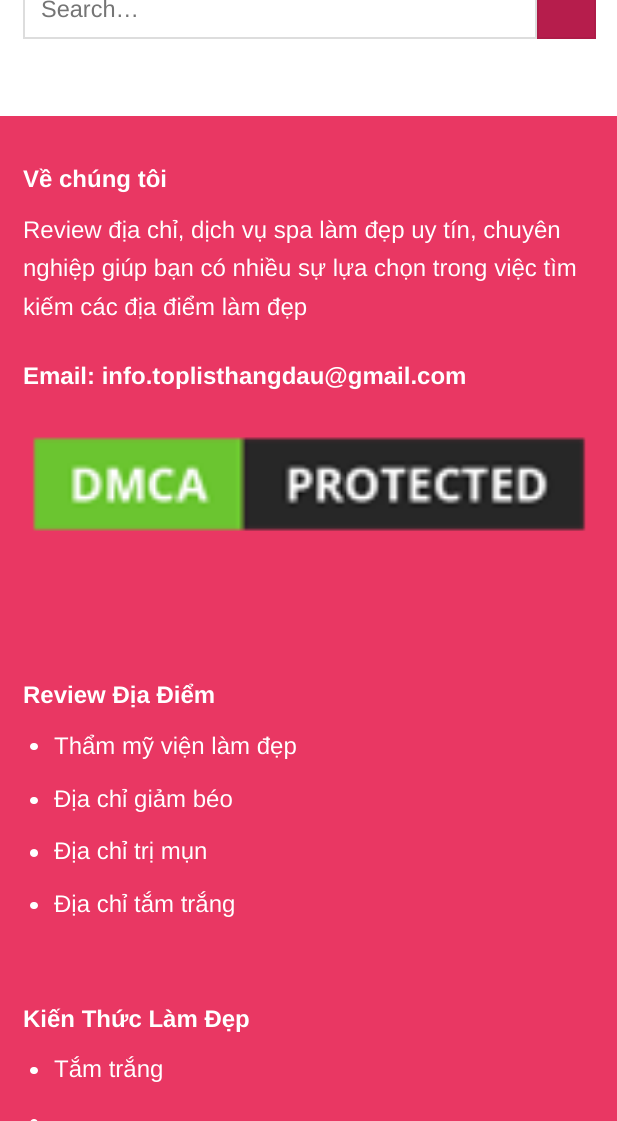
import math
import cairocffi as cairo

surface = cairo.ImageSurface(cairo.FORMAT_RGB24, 617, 1121)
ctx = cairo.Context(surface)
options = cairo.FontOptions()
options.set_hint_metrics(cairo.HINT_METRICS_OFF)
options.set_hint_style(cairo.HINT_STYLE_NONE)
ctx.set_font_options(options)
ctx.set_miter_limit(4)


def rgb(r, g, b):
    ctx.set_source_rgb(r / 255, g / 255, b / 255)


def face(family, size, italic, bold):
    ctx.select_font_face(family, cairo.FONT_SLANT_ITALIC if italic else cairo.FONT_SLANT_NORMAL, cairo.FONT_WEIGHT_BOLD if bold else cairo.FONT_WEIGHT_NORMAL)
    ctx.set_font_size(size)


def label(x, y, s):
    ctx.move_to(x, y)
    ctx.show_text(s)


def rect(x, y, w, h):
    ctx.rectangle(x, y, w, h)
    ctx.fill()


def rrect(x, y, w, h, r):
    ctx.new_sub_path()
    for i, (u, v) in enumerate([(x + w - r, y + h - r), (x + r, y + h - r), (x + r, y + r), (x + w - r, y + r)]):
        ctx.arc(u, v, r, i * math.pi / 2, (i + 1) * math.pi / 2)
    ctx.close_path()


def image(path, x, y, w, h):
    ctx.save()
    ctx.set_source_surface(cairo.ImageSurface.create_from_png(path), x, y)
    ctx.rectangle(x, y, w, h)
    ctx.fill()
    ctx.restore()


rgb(255, 255, 255)
ctx.paint()
ctx.rectangle(24, -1, 512, 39)
rgb(221, 221, 221)
ctx.stroke()
face('Liberation Sans', 23.5, 0, 0)
rgb(117, 117, 117)
label(41, 17, 'Search…')
rgb(182, 29, 76)
ctx.rectangle(538, -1, 57, 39)
ctx.fill_preserve()
rgb(173, 28, 72)
ctx.stroke()
rgb(233, 55, 99)
rect(0, 116, 617, 1005)
face('Liberation Sans', 24, 0, 1)
rgb(255, 255, 255)
label(23, 187, 'Về chúng tôi')
face('Liberation Sans', 24, 0, 0)
label(23, 238, 'Review địa chỉ, dịch vụ spa làm đẹp uy tín, chuyên')
label(23, 276, 'nghiệp giúp bạn có nhiều sự lựa chọn trong việc tìm')
label(23, 315, 'kiếm các địa điểm làm đẹp')
face('Liberation Sans', 24, 0, 1)
label(23, 384, 'Email: info.toplisthangdau@gmail.com')
image('image0.png', 32, 437, 554, 94)
label(23, 703, 'Review Địa Điểm')
rrect(30, 743, 8, 7, 3.5)
ctx.fill()
face('Liberation Sans', 24, 0, 0)
label(54, 754, 'Thẩm mỹ viện làm đẹp')
rrect(30, 797, 8, 7, 3.5)
ctx.fill()
label(54, 807, 'Địa chỉ giảm béo')
ctx.new_path()
ctx.arc(34, 853, 4, 0, 2 * math.pi)
ctx.fill()
label(54, 859, 'Địa chỉ trị mụn')
rrect(30, 902, 8, 7, 3.5)
ctx.fill()
label(54, 912, 'Địa chỉ tắm trắng')
face('Liberation Sans', 24, 0, 1)
label(23, 1027, 'Kiến Thức Làm Đẹp')
rrect(30, 1067, 8, 7, 3.5)
ctx.fill()
face('Liberation Sans', 24, 0, 0)
label(54, 1077, 'Tắm trắng')
rrect(30, 1119, 8, 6, 4)
ctx.fill()
surface.write_to_png('render.png')
